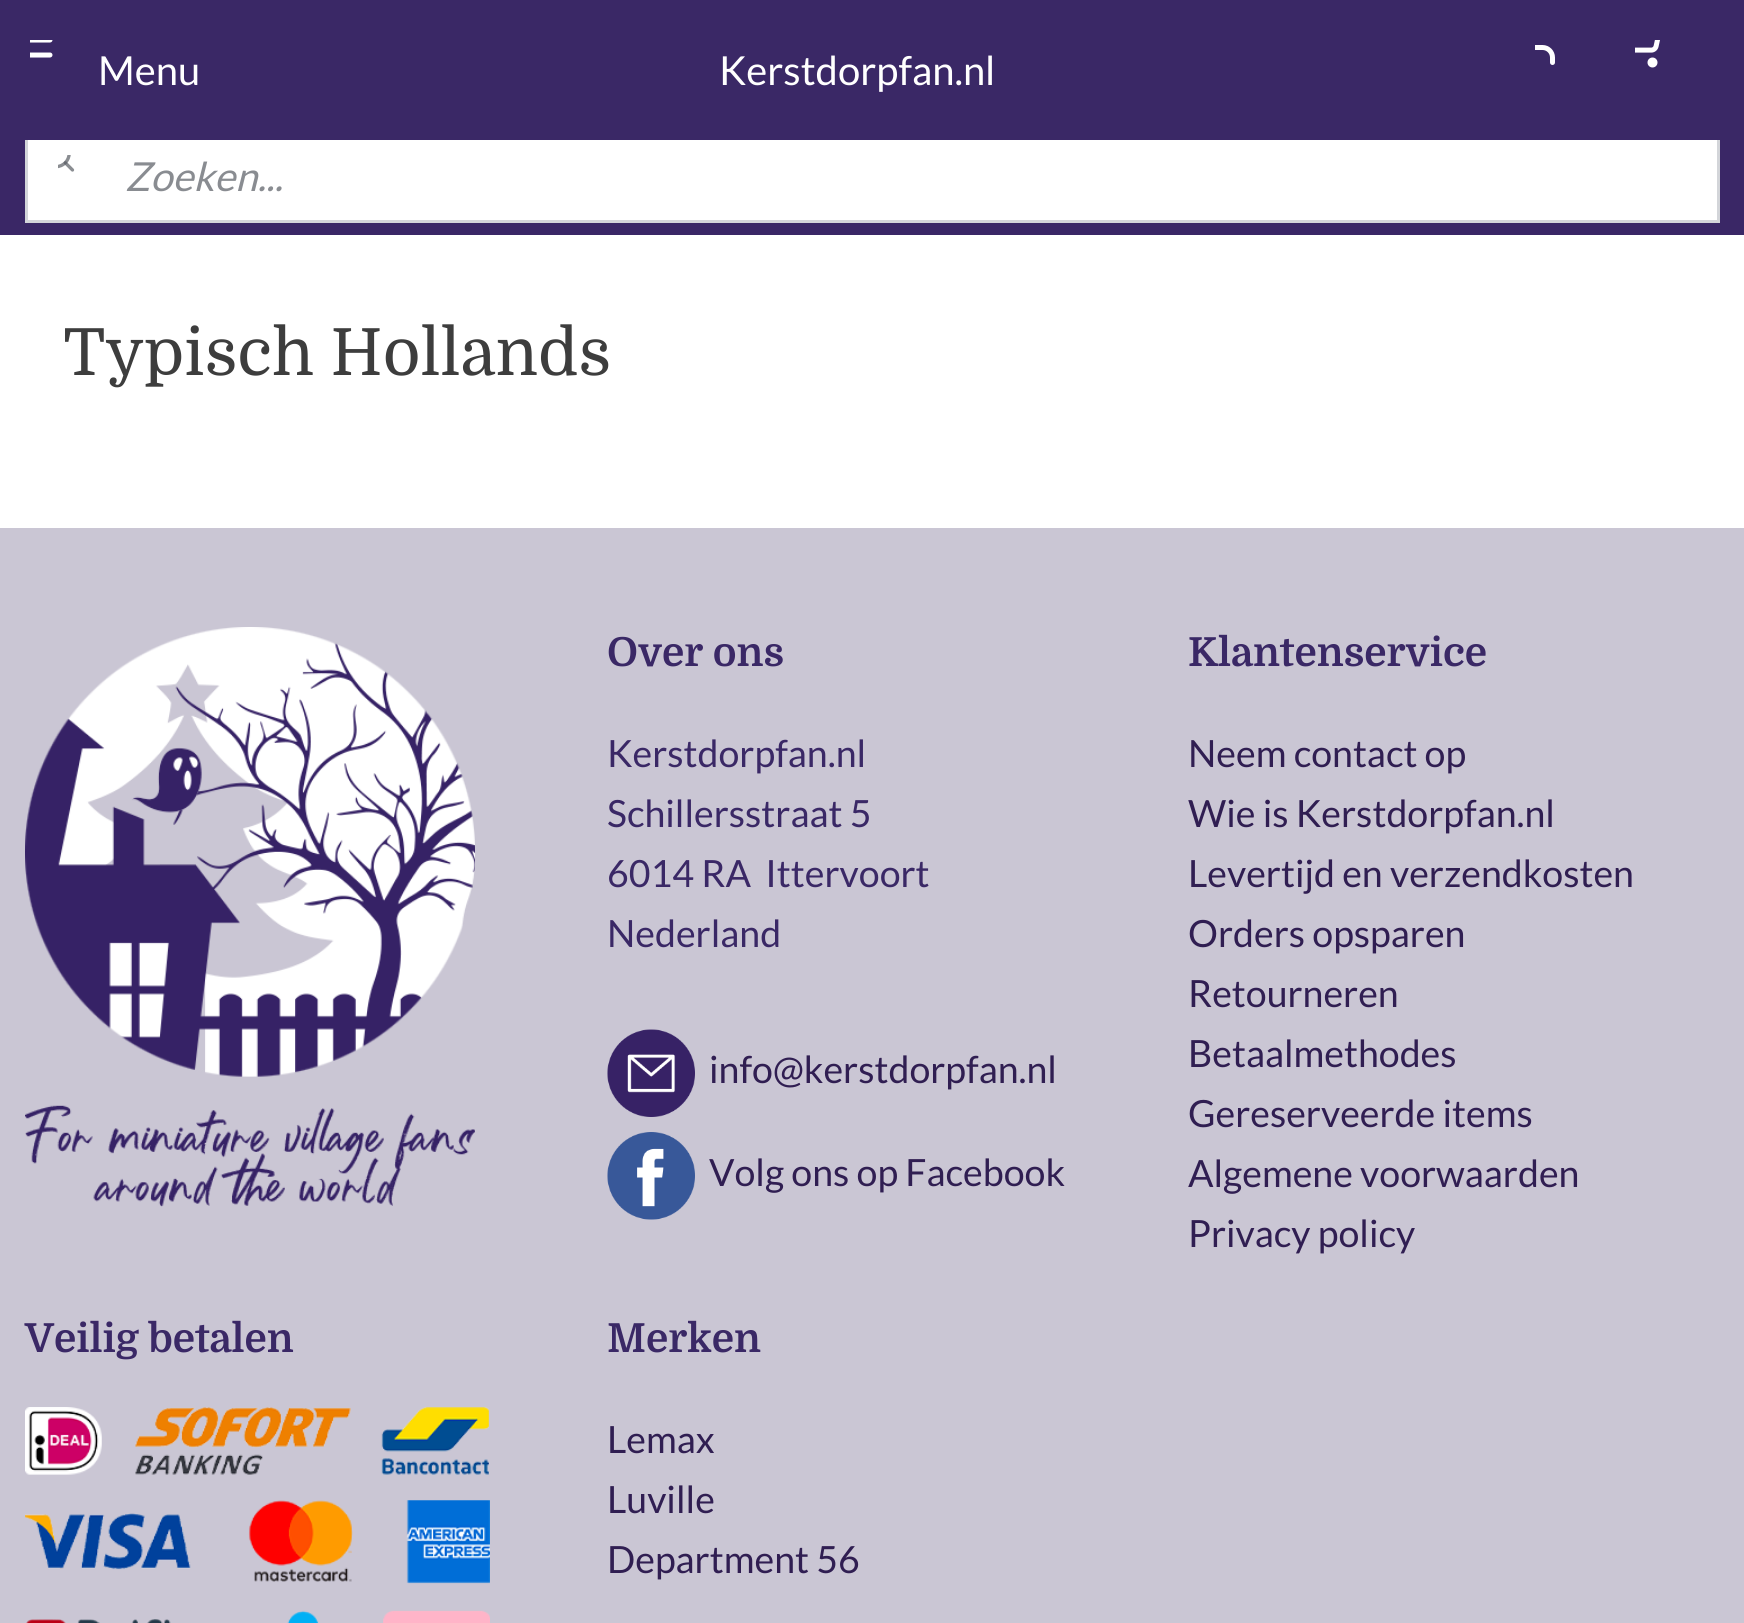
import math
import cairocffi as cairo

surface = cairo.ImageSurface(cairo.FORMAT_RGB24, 1744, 1623)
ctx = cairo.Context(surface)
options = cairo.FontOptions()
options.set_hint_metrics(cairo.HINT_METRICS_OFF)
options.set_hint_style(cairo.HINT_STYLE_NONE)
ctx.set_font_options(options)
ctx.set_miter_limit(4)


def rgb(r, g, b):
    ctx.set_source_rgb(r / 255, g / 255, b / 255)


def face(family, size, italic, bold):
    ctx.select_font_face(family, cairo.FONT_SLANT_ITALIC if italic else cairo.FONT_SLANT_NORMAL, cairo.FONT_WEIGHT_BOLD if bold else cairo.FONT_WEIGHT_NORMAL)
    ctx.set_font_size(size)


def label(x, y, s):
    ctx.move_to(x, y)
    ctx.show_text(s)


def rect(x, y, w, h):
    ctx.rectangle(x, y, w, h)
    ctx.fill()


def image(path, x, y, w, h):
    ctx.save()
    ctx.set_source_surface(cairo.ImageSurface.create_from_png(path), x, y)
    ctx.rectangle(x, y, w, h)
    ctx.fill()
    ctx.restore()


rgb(255, 255, 255)
ctx.paint()
rgb(58, 39, 102)
rect(0, 140, 1744, 95)
rgb(255, 255, 255)
rect(28, 140, 1689, 80)
ctx.rectangle(26.5, 129.5, 1692, 92)
rgb(211, 213, 217)
ctx.set_line_width(3)
ctx.stroke()
rgb(58, 40, 102)
rect(0, 0, 1744, 140)
image('image0.png', 30, 40, 23, 18)
face('Lato', 40, 0, 0)
rgb(255, 255, 255)
label(98, 85, 'Menu')
label(719, 85, 'Kerstdorpfan.nl')
image('image1.png', 1535, 45, 20, 20)
image('image2.png', 1635, 40, 25, 28)
image('image3.png', 58, 155, 17, 17)
face('Lato', 40, 1, 0)
rgb(137, 140, 145)
label(125, 191, 'Zoeken...')
face('Domine', 65, 0, 0)
rgb(61, 61, 61)
label(63, 375, 'Typisch Hollands')
rgb(202, 198, 212)
rect(0, 528, 1744, 1095)
image('image4.png', 25, 627, 450, 580)
face('Domine', 40, 0, 1)
rgb(58, 40, 102)
label(607, 666, 'Over ons')
face('Lato', 37.5, 0, 0)
label(607, 767, 'Kerstdorpfan.nl')
label(607, 827, 'Schillersstraat 5')
label(607, 887, '6014 RA  Ittervoort')
label(607, 947, 'Nederland')
image('image5.png', 607, 1029, 88, 88)
rgb(48, 30, 82)
label(709, 1083, 'info@kerstdorpfan.nl')
image('image6.png', 607, 1132, 88, 88)
label(709, 1186, 'Volg ons op Facebook')
face('Domine', 40, 0, 1)
rgb(58, 40, 102)
label(1188, 666, 'Klantenservice')
face('Lato', 37.5, 0, 0)
rgb(48, 30, 82)
label(1188, 767, 'Neem contact op')
label(1188, 827, 'Wie is Kerstdorpfan.nl')
label(1188, 887, 'Levertijd en verzendkosten')
label(1188, 947, 'Orders opsparen')
label(1188, 1007, 'Retourneren')
label(1188, 1067, 'Betaalmethodes')
label(1188, 1127, 'Gereserveerde items')
label(1188, 1187, 'Algemene voorwaarden')
label(1188, 1247, 'Privacy policy')
face('Domine', 40, 0, 1)
rgb(58, 40, 102)
label(25, 1352, 'Veilig betalen')
image('image7.png', 25, 1407, 465, 216)
label(607, 1352, 'Merken')
face('Lato', 37.5, 0, 0)
rgb(48, 30, 82)
label(607, 1453, 'Lemax')
label(607, 1513, 'Luville')
label(607, 1573, 'Department 56')
surface.write_to_png('render.png')
